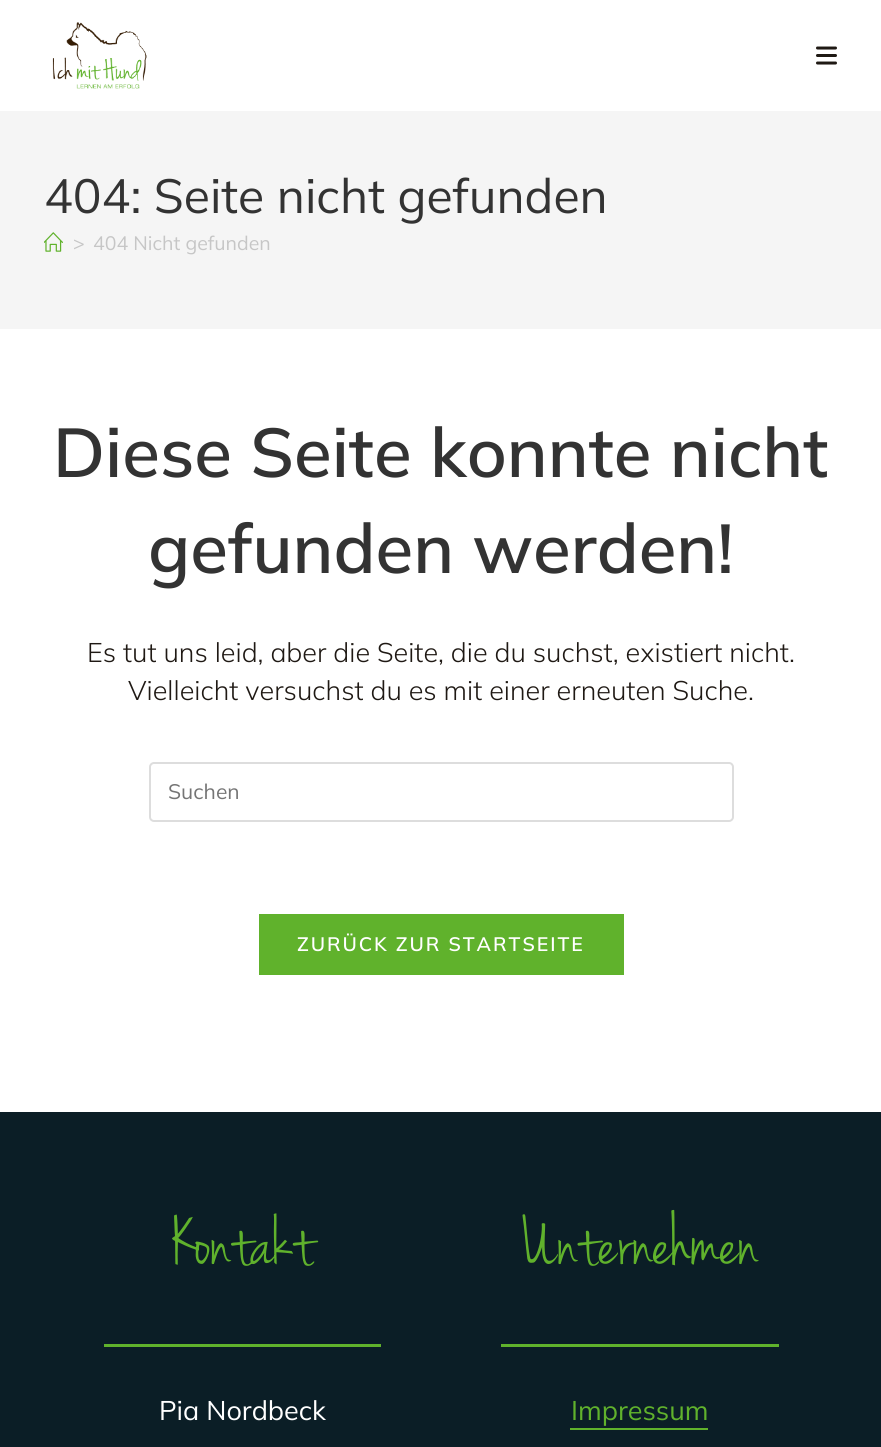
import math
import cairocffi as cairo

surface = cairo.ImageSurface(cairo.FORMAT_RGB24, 881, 1447)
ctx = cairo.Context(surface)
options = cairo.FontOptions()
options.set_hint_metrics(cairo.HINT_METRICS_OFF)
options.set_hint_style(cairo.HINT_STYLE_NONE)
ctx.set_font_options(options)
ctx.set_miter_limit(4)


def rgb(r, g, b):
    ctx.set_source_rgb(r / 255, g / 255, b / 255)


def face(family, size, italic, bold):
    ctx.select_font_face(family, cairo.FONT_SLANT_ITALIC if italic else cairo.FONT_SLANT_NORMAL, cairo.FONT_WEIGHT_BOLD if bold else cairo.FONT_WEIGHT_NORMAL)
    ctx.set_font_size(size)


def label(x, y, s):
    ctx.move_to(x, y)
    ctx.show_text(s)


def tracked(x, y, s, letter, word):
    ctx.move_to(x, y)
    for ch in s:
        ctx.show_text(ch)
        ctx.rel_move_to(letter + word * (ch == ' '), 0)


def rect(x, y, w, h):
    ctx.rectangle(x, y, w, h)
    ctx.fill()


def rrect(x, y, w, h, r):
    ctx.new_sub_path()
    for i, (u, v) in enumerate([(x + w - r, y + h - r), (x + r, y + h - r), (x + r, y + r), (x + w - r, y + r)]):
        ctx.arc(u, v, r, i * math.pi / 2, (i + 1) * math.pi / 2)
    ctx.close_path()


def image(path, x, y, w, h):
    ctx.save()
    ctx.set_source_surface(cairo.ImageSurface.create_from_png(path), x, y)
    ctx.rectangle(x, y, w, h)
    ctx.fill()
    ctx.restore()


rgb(255, 255, 255)
ctx.paint()
image('image0.png', 52, 22, 95, 67)
image('image1.png', 816, 46, 21, 19)
rgb(245, 245, 245)
rect(0, 111, 881, 218)
face('Mulish', 48, 0, 0)
rgb(51, 51, 51)
label(44, 213, '404: Seite nicht gefunden')
image('image2.png', 44, 232, 19, 20)
face('Mulish', 19.5, 0, 0)
rgb(198, 198, 198)
label(73, 250, '>')
label(93, 250, '404 Nicht gefunden')
face('Mulish SemiBold', 69, 0, 0)
rgb(51, 51, 51)
label(53, 477, 'Diese Seite konnte nicht')
label(148, 573, 'gefunden werden!')
face('Mulish Light', 27, 0, 0)
rgb(31, 25, 20)
label(87, 662, 'Es tut uns leid, aber die Seite, die du suchst, existiert nicht.')
label(128, 700, 'Vielleicht versuchst du es mit einer erneuten Suche.')
rrect(150, 763, 583, 58, 4)
rgb(221, 221, 221)
ctx.stroke()
face('Mulish', 21, 0, 0)
rgb(117, 117, 117)
label(168, 799, 'Suchen')
rgb(96, 178, 44)
rect(259, 914, 365, 61)
face('Mulish SemiBold', 19.5, 0, 0)
rgb(255, 255, 255)
tracked(297, 951, 'ZURÜCK ZUR STARTSEITE', 1.95, 0)
rgb(11, 30, 38)
rect(0, 1112, 881, 335)
face('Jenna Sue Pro', 75, 0, 0)
rgb(96, 178, 44)
label(171, 1264, 'Kontakt')
rect(104, 1344, 277, 3)
face('Mulish', 27, 0, 0)
rgb(255, 255, 255)
label(159, 1420, 'Pia Nordbeck')
face('Jenna Sue Pro', 75, 0, 0)
rgb(96, 178, 44)
label(521, 1264, 'Unternehmen')
rect(501, 1344, 278, 3)
face('Mulish', 27, 0, 0)
label(571, 1420, 'Impressum')
rect(570, 1428, 138, 2)
surface.write_to_png('render.png')
